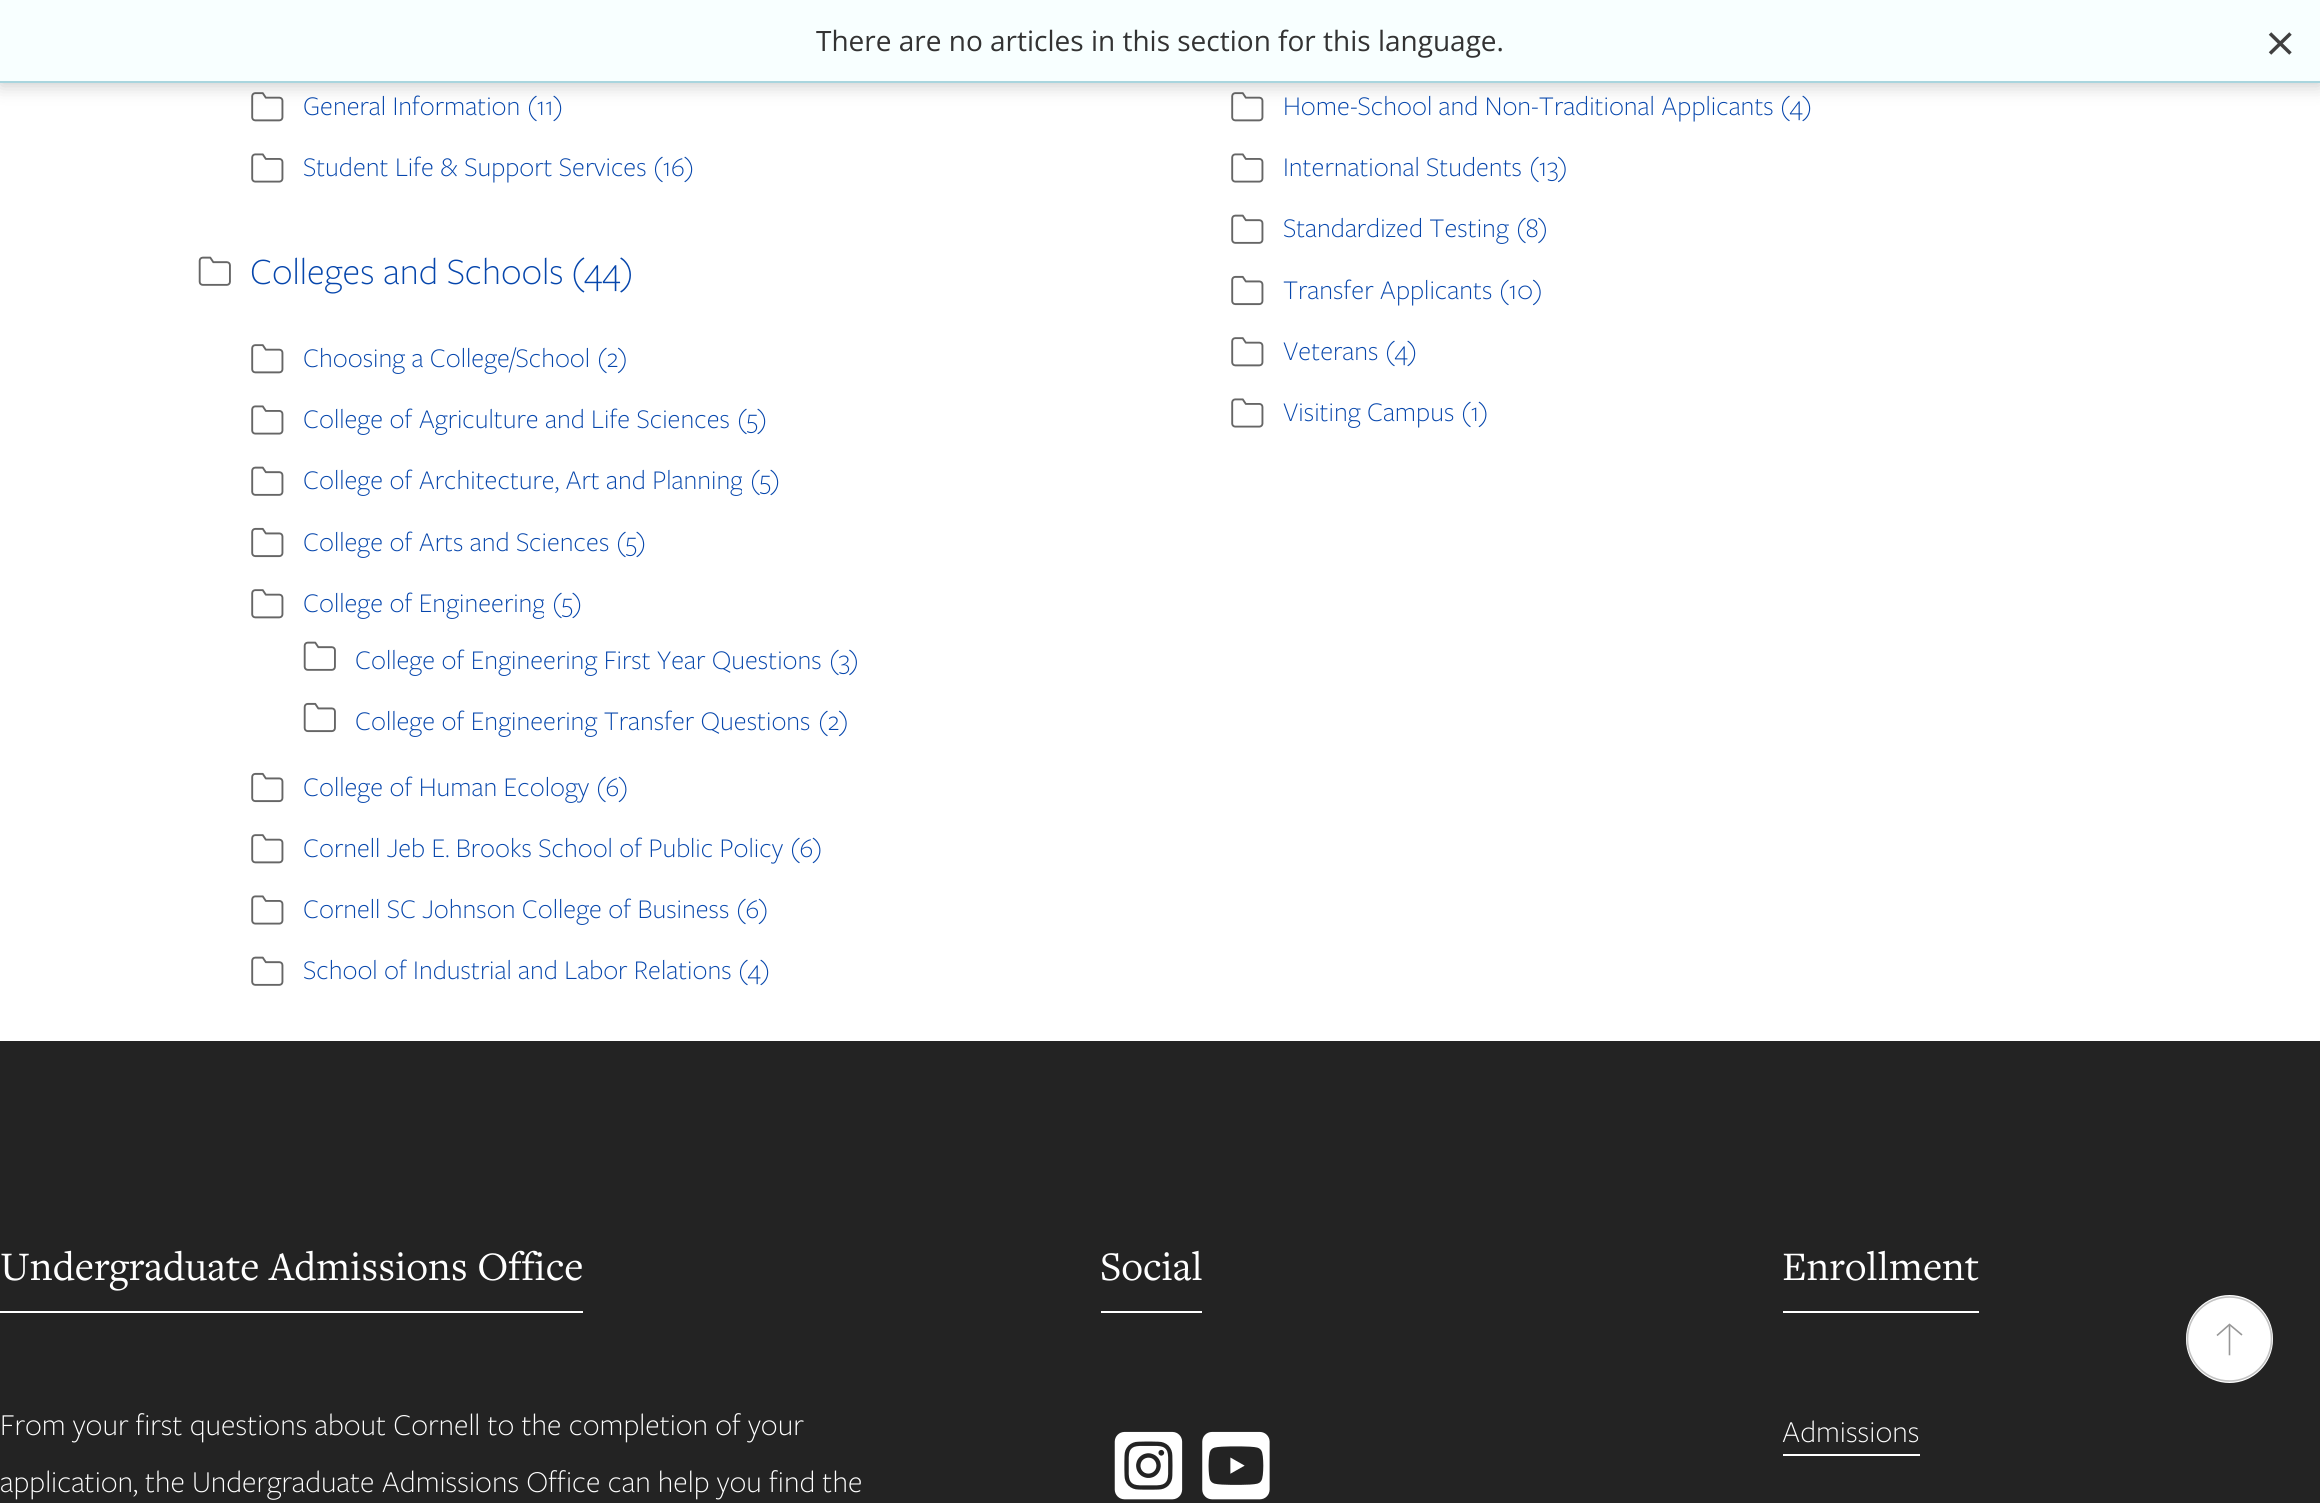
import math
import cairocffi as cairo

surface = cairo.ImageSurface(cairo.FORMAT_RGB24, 2320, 1503)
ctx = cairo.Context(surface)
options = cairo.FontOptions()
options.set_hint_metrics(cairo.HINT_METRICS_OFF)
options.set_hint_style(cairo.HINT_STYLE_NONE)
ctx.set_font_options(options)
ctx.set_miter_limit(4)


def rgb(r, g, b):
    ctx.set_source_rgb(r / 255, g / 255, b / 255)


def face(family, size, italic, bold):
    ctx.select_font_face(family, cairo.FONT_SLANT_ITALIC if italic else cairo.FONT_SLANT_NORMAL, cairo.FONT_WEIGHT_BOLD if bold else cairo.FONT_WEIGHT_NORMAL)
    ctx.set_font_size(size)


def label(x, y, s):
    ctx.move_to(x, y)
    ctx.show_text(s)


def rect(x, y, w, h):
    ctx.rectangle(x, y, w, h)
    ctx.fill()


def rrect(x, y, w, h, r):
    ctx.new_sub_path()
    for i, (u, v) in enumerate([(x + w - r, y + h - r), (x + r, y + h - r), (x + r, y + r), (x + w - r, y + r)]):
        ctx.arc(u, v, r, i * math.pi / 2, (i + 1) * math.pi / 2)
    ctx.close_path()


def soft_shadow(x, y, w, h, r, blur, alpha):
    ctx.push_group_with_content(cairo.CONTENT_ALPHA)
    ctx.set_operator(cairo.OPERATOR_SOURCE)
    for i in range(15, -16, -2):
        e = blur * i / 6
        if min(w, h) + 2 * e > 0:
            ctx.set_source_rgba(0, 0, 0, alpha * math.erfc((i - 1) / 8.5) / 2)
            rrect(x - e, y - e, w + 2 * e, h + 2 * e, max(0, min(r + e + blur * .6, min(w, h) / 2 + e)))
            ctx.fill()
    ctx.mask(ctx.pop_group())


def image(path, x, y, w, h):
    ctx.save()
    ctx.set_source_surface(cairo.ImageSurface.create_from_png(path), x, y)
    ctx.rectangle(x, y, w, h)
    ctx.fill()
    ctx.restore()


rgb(255, 255, 255)
ctx.paint()
image('image0.png', 251, 92, 33, 30)
image('image0.png', 1231, 92, 33, 30)
rgb(0, 0, 0)
soft_shadow(0, 4, 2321, 82, 0, 9, 0.2)
rgb(248, 255, 255)
rect(0, 0, 2320, 81)
rgb(169, 213, 222)
rect(0, 81, 2320, 2)
face('Open Sans', 28, 0, 0)
rgb(51, 51, 51)
label(816, 51, 'There are no articles in this section for this language.')
ctx.new_path()
ctx.move_to(2290.5, 33.5)
ctx.line_to(2270, 53.5)
ctx.move_to(2290.5, 53.5)
ctx.line_to(2270, 33.5)
rgb(64, 64, 64)
ctx.set_line_width(3.5)
ctx.stroke()
face('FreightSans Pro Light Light', 28, 0, 0)
rgb(6, 70, 172)
label(303, 115, 'General Information')
label(527, 115, '(11)')
image('image1.png', 251, 153, 33, 30)
label(303, 176, 'Student Life & Support Services')
label(653, 176, '(16)')
label(1283, 115, 'Home-School and Non-Traditional Applicants')
label(1780, 115, '(4)')
image('image1.png', 1231, 153, 33, 30)
label(1283, 176, 'International Students')
label(1529, 176, '(13)')
image('image2.png', 1231, 214, 33, 30)
label(1283, 237, 'Standardized Testing')
label(1516, 237, '(8)')
image('image3.png', 1231, 275, 33, 31)
label(1283, 299, 'Transfer Applicants')
label(1499, 299, '(10)')
image('image0.png', 1231, 337, 33, 30)
label(1283, 360, 'Veterans')
label(1385, 360, '(4)')
image('image1.png', 1231, 398, 33, 30)
label(1283, 421, 'Visiting Campus')
label(1461, 421, '(1)')
image('image4.png', 198, 256, 33, 30)
face('FreightSans Pro Light Light', 38.5, 0, 0)
label(250, 284, 'Colleges and Schools')
label(571, 284, '(44)')
image('image0.png', 251, 344, 33, 30)
face('FreightSans Pro Light Light', 28, 0, 0)
label(303, 367, 'Choosing a College/School')
label(597, 367, '(2)')
image('image1.png', 251, 405, 33, 30)
label(303, 428, 'College of Agriculture and Life Sciences')
label(737, 428, '(5)')
image('image2.png', 251, 466, 33, 30)
ctx.save()
ctx.rectangle(303, 464, 439, 35)
ctx.clip()
label(303, 489, 'College of Architecture, Art and Planning')
ctx.restore()
label(750, 489, '(5)')
image('image3.png', 251, 527, 33, 31)
label(303, 551, 'College of Arts and Sciences')
label(616, 551, '(5)')
image('image0.png', 251, 589, 33, 30)
ctx.save()
ctx.rectangle(303, 586, 241, 35)
ctx.clip()
label(303, 612, 'College of Engineering')
ctx.restore()
label(552, 612, '(5)')
image('image4.png', 303, 641, 33, 30)
label(355, 669, 'College of Engineering First Year Questions')
label(829, 669, '(3)')
image('image5.png', 303, 702, 33, 31)
label(355, 730, 'College of Engineering Transfer Questions')
label(818, 730, '(2)')
image('image3.png', 251, 772, 33, 31)
label(303, 796, 'College of Human Ecology')
label(596, 796, '(6)')
image('image0.png', 251, 834, 33, 30)
label(303, 857, 'Cornell Jeb E. Brooks School of Public Policy')
label(790, 857, '(6)')
image('image1.png', 251, 895, 33, 30)
label(303, 918, 'Cornell SC Johnson College of Business')
label(736, 918, '(6)')
image('image2.png', 251, 956, 33, 30)
label(303, 979, 'School of Industrial and Labor Relations')
label(738, 979, '(4)')
rgb(35, 35, 35)
rect(0, 1041, 2320, 462)
face('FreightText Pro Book', 42, 0, 0)
rgb(255, 255, 255)
label(0, 1280, 'Undergraduate Admissions Office')
rect(0, 1311, 583, 2)
face('FreightSans Pro Light Light', 31.5, 0, 0)
label(0, 1435, 'From your first questions about Cornell to the completion of your')
label(0, 1492, 'application, the Undergraduate Admissions Office can help you find the')
face('FreightText Pro Book', 42, 0, 0)
label(1100, 1280, 'Social')
rect(1101, 1311, 101, 2)
image('image6.png', 1114, 1431, 69, 69)
image('image7.png', 1202, 1431, 68, 69)
label(1782, 1280, 'Enrollment')
rect(1783, 1311, 196, 2)
face('FreightSans Pro Light Light', 31.5, 0, 0)
label(1782, 1442, 'Admissions')
rect(1783, 1454, 137, 2)
rrect(2186, 1295, 87, 88, 43.5)
ctx.fill()
ctx.arc(2229.5, 1339, 42, 0, 2 * math.pi)
rgb(195, 195, 195)
ctx.set_line_width(1.6)
ctx.stroke()
ctx.new_path()
ctx.move_to(2229.5, 1354.5)
ctx.line_to(2229.5, 1326)
rgb(151, 151, 151)
ctx.set_line_cap(cairo.LINE_CAP_SQUARE)
ctx.stroke()
ctx.new_path()
ctx.move_to(2217, 1335.5)
ctx.line_to(2229.5, 1324.5)
ctx.line_to(2242, 1335)
ctx.set_line_cap(cairo.LINE_CAP_BUTT)
ctx.stroke()
surface.write_to_png('render.png')
